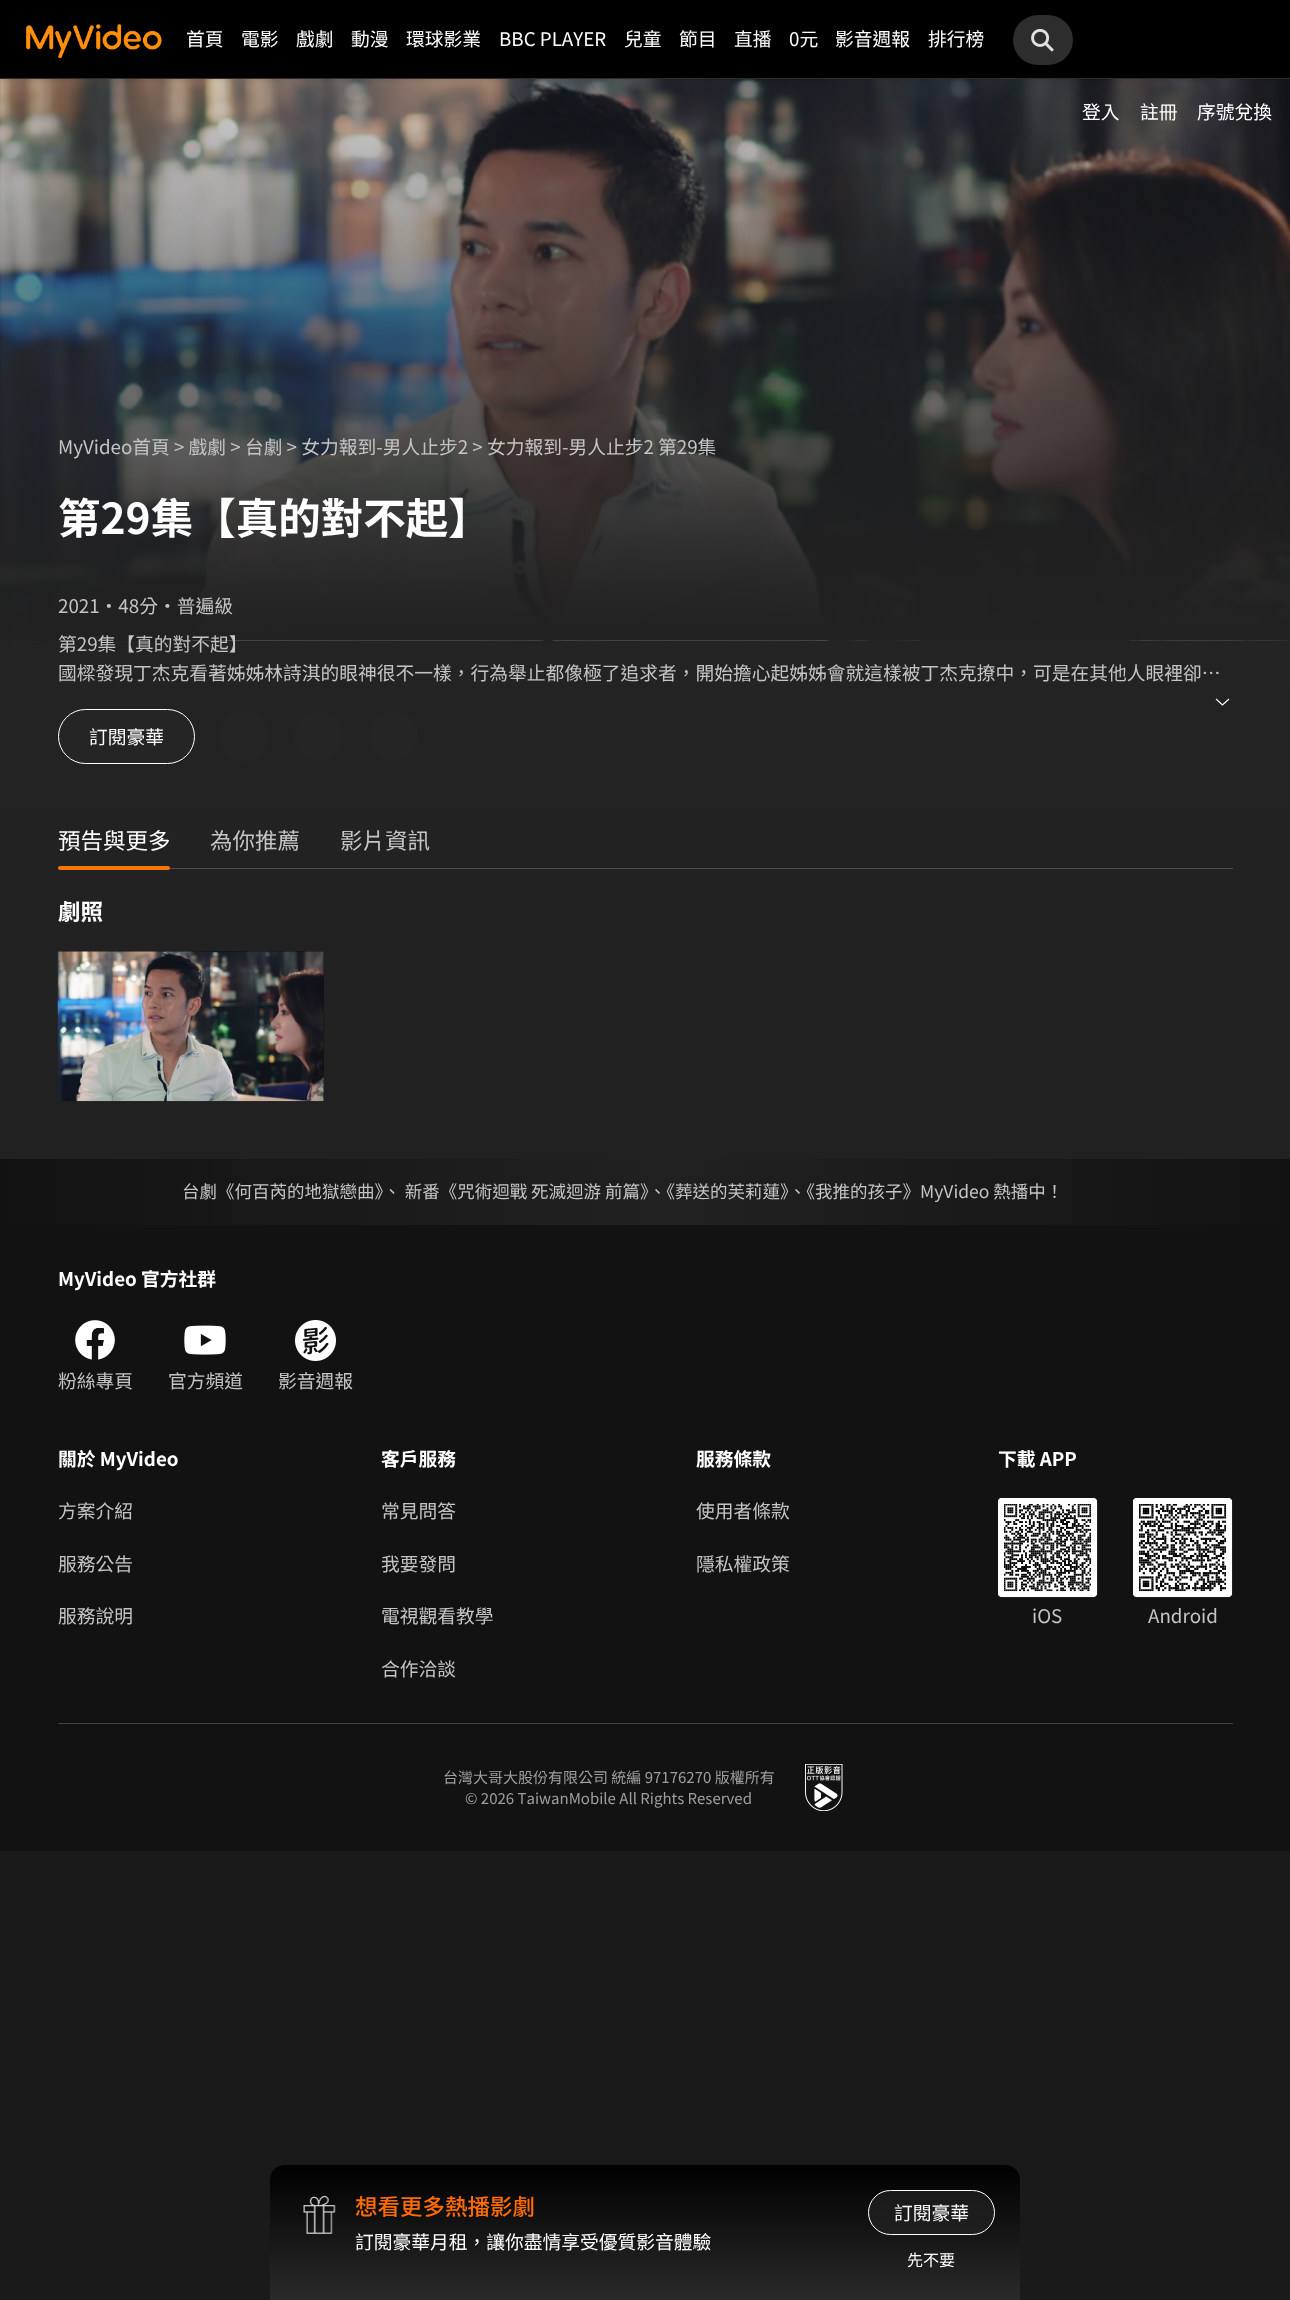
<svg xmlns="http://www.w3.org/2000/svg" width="1290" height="2300">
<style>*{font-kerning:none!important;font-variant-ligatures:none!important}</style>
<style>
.a{font:18.75px Noto Sans TC;fill:#fff}
.b{font:18.75px Noto Sans TC;fill:#c4c4c4}
.c{font:bold 42.5px Noto Sans TC;fill:#fff}
.d{font:22.5px Noto Sans TC;fill:#fff}
.e{font:22.5px Noto Sans TC;fill:#c4c4c4}
.f{font:bold 22.5px Noto Sans TC;fill:#fff}
.g{font:17.5px Noto Sans TC;fill:#c4c4c4}
.h{font:bold 18.75px Noto Sans TC;fill:#fff}
.i{font:15px Noto Sans TC;fill:#9e9e9e}
.j{font:500 22.5px Noto Sans TC;fill:#ff6b00}
.k{font:16px Noto Sans TC;fill:#fff}
</style>
<defs>
<linearGradient id="g1" gradientUnits="userSpaceOnUse" x1="643" y1="77" x2="643" y2="640"><stop offset="0" stop-color="#212121" stop-opacity="0.2"/><stop offset="1" stop-color="#212121"/></linearGradient>
<linearGradient id="g2" gradientUnits="userSpaceOnUse" x1="645" y1="77" x2="645" y2="1159"><stop offset="0.36" stop-color="#212121" stop-opacity="0"/><stop offset="0.47" stop-color="#212121" stop-opacity="0.45"/><stop offset="0.59" stop-color="#212121" stop-opacity="0.7"/><stop offset="0.88" stop-color="#212121"/></linearGradient>
<linearGradient id="g3" gradientUnits="userSpaceOnUse" x1="0" y1="1192" x2="1290" y2="1192"><stop offset="0" stop-color="#121212"/><stop offset="0.52" stop-color="#212121"/><stop offset="1" stop-color="#121212"/></linearGradient>
<linearGradient id="g4" gradientUnits="userSpaceOnUse" x1="645" y1="2165" x2="645" y2="2300"><stop offset="0" stop-color="#000"/><stop offset="1" stop-color="#2a2a2a"/></linearGradient>
</defs>
<rect width="100%" height="100%" fill="#1a1a1a"/>
<path fill="#000" d="M0 0h1290v78H0z"/>
<path fill="#2d2d2d" d="M0 78h1290v1H0z"/>
<image href="1.png" x="26" y="24" width="136" height="34"/>
<rect fill="#2d2d2d" x="1013" y="15" width="60" height="50" rx="25"/>
<image href="2.png" x="1031" y="28" width="23" height="24"/>
<path fill="#272727" d="M0 640h1290v383H0z"/>
<image href="3.png" x="0" y="79" width="1290" height="562"/>
<path fill="url(#g1)" d="M0 79h1290v561H0z"/>
<path fill="url(#g2)" d="M0 478h1290v681H0z"/>
<path fill="none" stroke="#fff" stroke-width="1.2" d="M1229 699l-6.5 6l-6.5-6"/>
<rect fill="#252525" stroke="#fff" x="58.5" y="709.5" width="136" height="54" rx="27"/>
<circle fill="#252525" cx="244" cy="736" r="25"/>
<circle fill="#252525" cx="319" cy="736" r="25"/>
<circle fill="#252525" cx="393" cy="736" r="25"/>
<path fill="#4e4e4e" d="M58 868h1175v1H58z"/>
<rect fill="#f57600" x="58" y="866" width="112" height="4" rx="2"/>
<path fill="#121212" d="M58 951h266v150H58z"/>
<image href="4.png" x="57" y="951" width="267" height="151"/>
<path fill="#121212" d="M0 1225h1290v626H0z"/>
<path fill="url(#g3)" d="M0 1159h1290v66H0z"/>
<image href="5.png" x="75" y="1320" width="40" height="40"/>
<image href="6.png" x="184" y="1325" width="42" height="30"/>
<image href="7.png" x="295" y="1320" width="41" height="41"/>
<image href="8.png" x="998" y="1498" width="100" height="100"/>
<image href="9.png" x="1133" y="1498" width="100" height="100"/>
<path fill="#424242" d="M58 1723h1175v1H58z"/>
<image href="10.png" x="805" y="1764" width="38" height="47"/>
<path fill="url(#g4)" d="M285 2165h720c8.5 0 15 6.5 15 15v120h-750v-120c0-8.5 6.5-15 15-15z"/>
<image href="11.png" x="303" y="2195" width="33" height="39"/>
<rect fill="#26262699" stroke="#fff" x="868.5" y="2190.5" width="126" height="44" rx="22"/>
<text class="a" x="186" y="46">首頁</text>
<text class="a" x="241" y="46">電影</text>
<text class="a" x="296" y="46">戲劇</text>
<text class="a" x="351" y="46">動漫</text>
<text class="a" x="406" y="46">環球影業</text>
<text class="a" x="499" y="46">BBC PLAYER</text>
<text class="a" x="624" y="46">兒童</text>
<text class="a" x="679" y="46">節目</text>
<text class="a" x="734" y="46">直播</text>
<text class="a" x="789" y="46">0元</text>
<text class="a" x="835" y="46">影音週報</text>
<text class="a" x="928" y="46">排行榜</text>
<text class="a" x="1082" y="119">登入</text>
<text class="a" x="1140" y="119">註冊</text>
<text class="a" x="1197" y="119">序號兌換</text>
<text class="b" x="58" y="454">MyVideo首頁 &gt; 戲劇 &gt; 台劇 &gt; 女力報到-男人止步2 &gt; 女力報到-男人止步2 第29集</text>
<text class="c" x="58" y="534">第29集【真的對不起】</text>
<text class="b" x="58" y="613">2021・48分・普遍級</text>
<text class="b" x="58" y="651">第29集【真的對不起】</text>
<text class="b" x="58" y="680">國樑發現丁杰克看著姊姊林詩淇的眼神很不一樣，行為舉止都像極了追求者，開始擔心起姊姊會就這樣被丁杰克撩中，可是在其他人眼裡卻…</text>
<text class="a" x="89" y="744">訂閱豪華</text>
<text class="d" x="58" y="849">預告與更多</text>
<text class="e" x="210" y="849">為你推薦</text>
<text class="e" x="340" y="849">影片資訊</text>
<text class="f" x="58" y="920">劇照</text>
<text class="g" x="182" y="1198">台劇《何百芮的地獄戀曲》、 新番《咒術迴戰 死滅迴游 前篇》、《葬送的芙莉蓮》、《我推的孩子》MyVideo 熱播中！</text>
<text class="h" x="58" y="1286">MyVideo 官方社群</text>
<text class="b" x="58" y="1388">粉絲專頁</text>
<text class="b" x="168" y="1388">官方頻道</text>
<text class="b" x="278" y="1388">影音週報</text>
<text class="h" x="58" y="1466">關於 MyVideo</text>
<text class="b" x="58" y="1518">方案介紹</text>
<text class="b" x="58" y="1571">服務公告</text>
<text class="b" x="58" y="1623">服務說明</text>
<text class="h" x="381" y="1466">客戶服務</text>
<text class="b" x="381" y="1518">常見問答</text>
<text class="b" x="381" y="1571">我要發問</text>
<text class="b" x="381" y="1623">電視觀看教學</text>
<text class="b" x="381" y="1676">合作洽談</text>
<text class="h" x="696" y="1466">服務條款</text>
<text class="b" x="696" y="1518">使用者條款</text>
<text class="b" x="696" y="1571">隱私權政策</text>
<text class="h" x="998" y="1466">下載 APP</text>
<text class="b" x="1032" y="1623">iOS</text>
<text class="b" x="1148" y="1623">Android</text>
<text class="i" x="443" y="1783">台灣大哥大股份有限公司 統編 97176270 版權所有</text>
<text class="i" x="465" y="1804">© 2026 TaiwanMobile All Rights Reserved</text>
<text class="j" x="355" y="2215">想看更多熱播影劇</text>
<text class="a" x="355" y="2249">訂閱豪華月租，讓你盡情享受優質影音體驗</text>
<text class="a" x="894" y="2220">訂閱豪華</text>
<text class="k" x="907" y="2266">先不要</text>
</svg>
